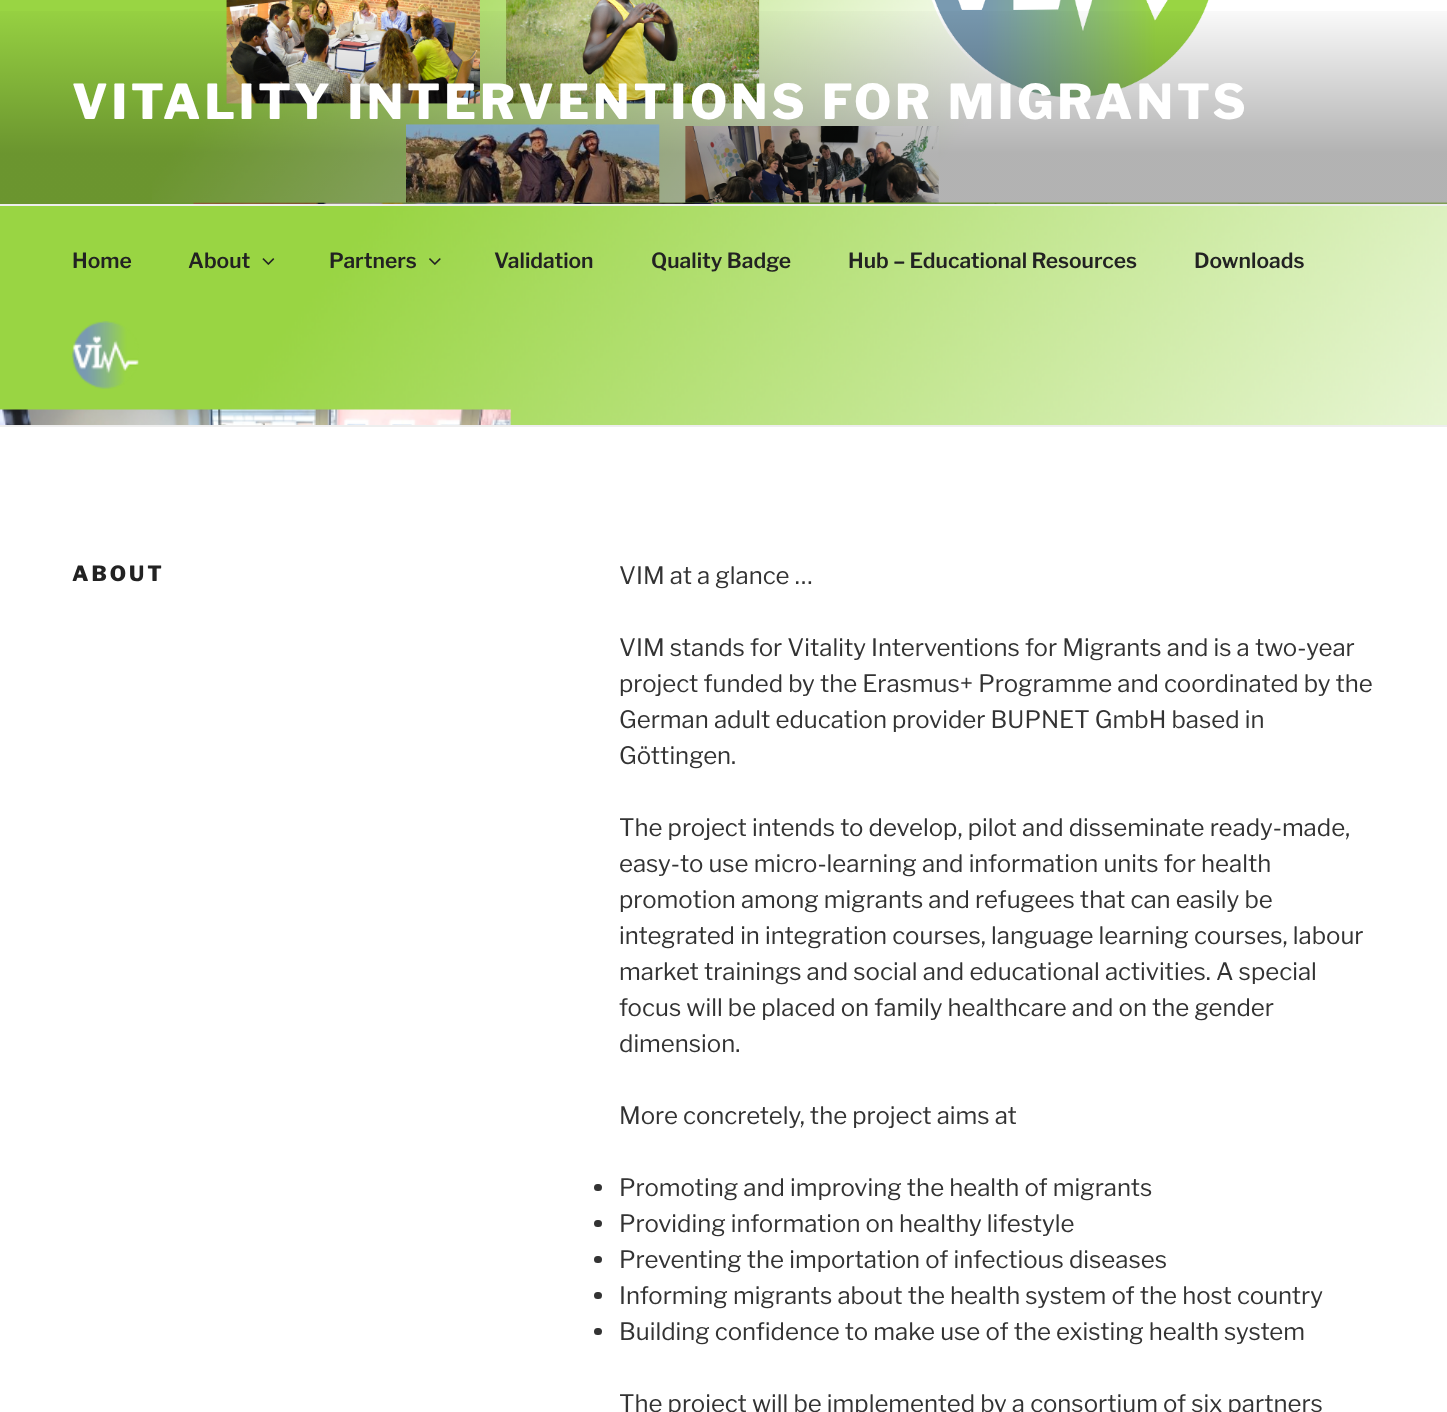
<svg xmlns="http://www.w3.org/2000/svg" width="1447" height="1412">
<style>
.a{font:100 48px Libre Franklin;letter-spacing:3.85px;fill:#fff}
.b{font:100 21px 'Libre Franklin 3';fill:#222}
.c{font:100 21px Libre Franklin;letter-spacing:3px;fill:#222}
.d{font:100 24px 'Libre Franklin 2';fill:#333}
</style>
<defs>
<linearGradient id="g1" gradientUnits="userSpaceOnUse" x1="724" y1="0" x2="724" y2="204"><stop offset="0" stop-color="#000" stop-opacity="0"/><stop offset="0.75" stop-color="#000" stop-opacity="0.3"/><stop offset="1" stop-color="#000" stop-opacity="0.3"/></linearGradient>
</defs>
<rect width="100%" height="100%" fill="#fff"/>
<image href="1.png" x="0" y="0" width="1447" height="204"/>
<image href="2.png" x="152" y="0" width="1295" height="203"/>
<path fill="url(#g1)" d="M0 11h1447v193H0z"/>
<image href="3.png" x="0" y="206" width="1447" height="219"/>
<path fill="#eee" d="M0 204h1447v2H0z"/>
<path fill="#eee" d="M0 425h1447v2H0z"/>
<image href="4.png" x="262" y="258" width="13" height="7"/>
<image href="5.png" x="429" y="258" width="12" height="7"/>
<image href="6.png" x="72" y="321" width="67" height="68"/>
<rect fill="#333" x="594" y="1184" width="8" height="7" rx="3.5"/>
<rect fill="#333" x="594" y="1220" width="8" height="7" rx="3.5"/>
<rect fill="#333" x="594" y="1256" width="8" height="7" rx="3.5"/>
<rect fill="#333" x="594" y="1292" width="8" height="7" rx="3.5"/>
<rect fill="#333" x="594" y="1328" width="8" height="7" rx="3.5"/>
<text class="a" x="72" y="119">VITALITY INTERVENTIONS FOR MIGRANTS</text>
<text class="b" x="72" y="268">Home</text>
<text class="b" x="188" y="268">About</text>
<text class="b" x="329" y="268">Partners</text>
<text class="b" x="494" y="268">Validation</text>
<text class="b" x="651" y="268">Quality Badge</text>
<text class="b" x="848" y="268">Hub – Educational Resources</text>
<text class="b" x="1194" y="268">Downloads</text>
<text class="c" x="72" y="581">ABOUT</text>
<text class="d" x="619" y="584">VIM at a glance …</text>
<text class="d" x="619" y="656">VIM stands for Vitality Interventions for Migrants and is a two-year</text>
<text class="d" x="619" y="692">project funded by the Erasmus+ Programme and coordinated by the</text>
<text class="d" x="619" y="728">German adult education provider BUPNET GmbH based in</text>
<text class="d" x="619" y="764">Göttingen.</text>
<text class="d" x="619" y="836">The project intends to develop, pilot and disseminate ready-made,</text>
<text class="d" x="619" y="872">easy-to use micro-learning and information units for health</text>
<text class="d" x="619" y="908">promotion among migrants and refugees that can easily be</text>
<text class="d" x="619" y="944">integrated in integration courses, language learning courses, labour</text>
<text class="d" x="619" y="980">market trainings and social and educational activities. A special</text>
<text class="d" x="619" y="1016">focus will be placed on family healthcare and on the gender</text>
<text class="d" x="619" y="1052">dimension.</text>
<text class="d" x="619" y="1124">More concretely, the project aims at</text>
<text class="d" x="619" y="1196">Promoting and improving the health of migrants</text>
<text class="d" x="619" y="1232">Providing information on healthy lifestyle</text>
<text class="d" x="619" y="1268">Preventing the importation of infectious diseases</text>
<text class="d" x="619" y="1304">Informing migrants about the health system of the host country</text>
<text class="d" x="619" y="1340">Building confidence to make use of the existing health system</text>
<text class="d" x="619" y="1412">The project will be implemented by a consortium of six partners</text>
</svg>
